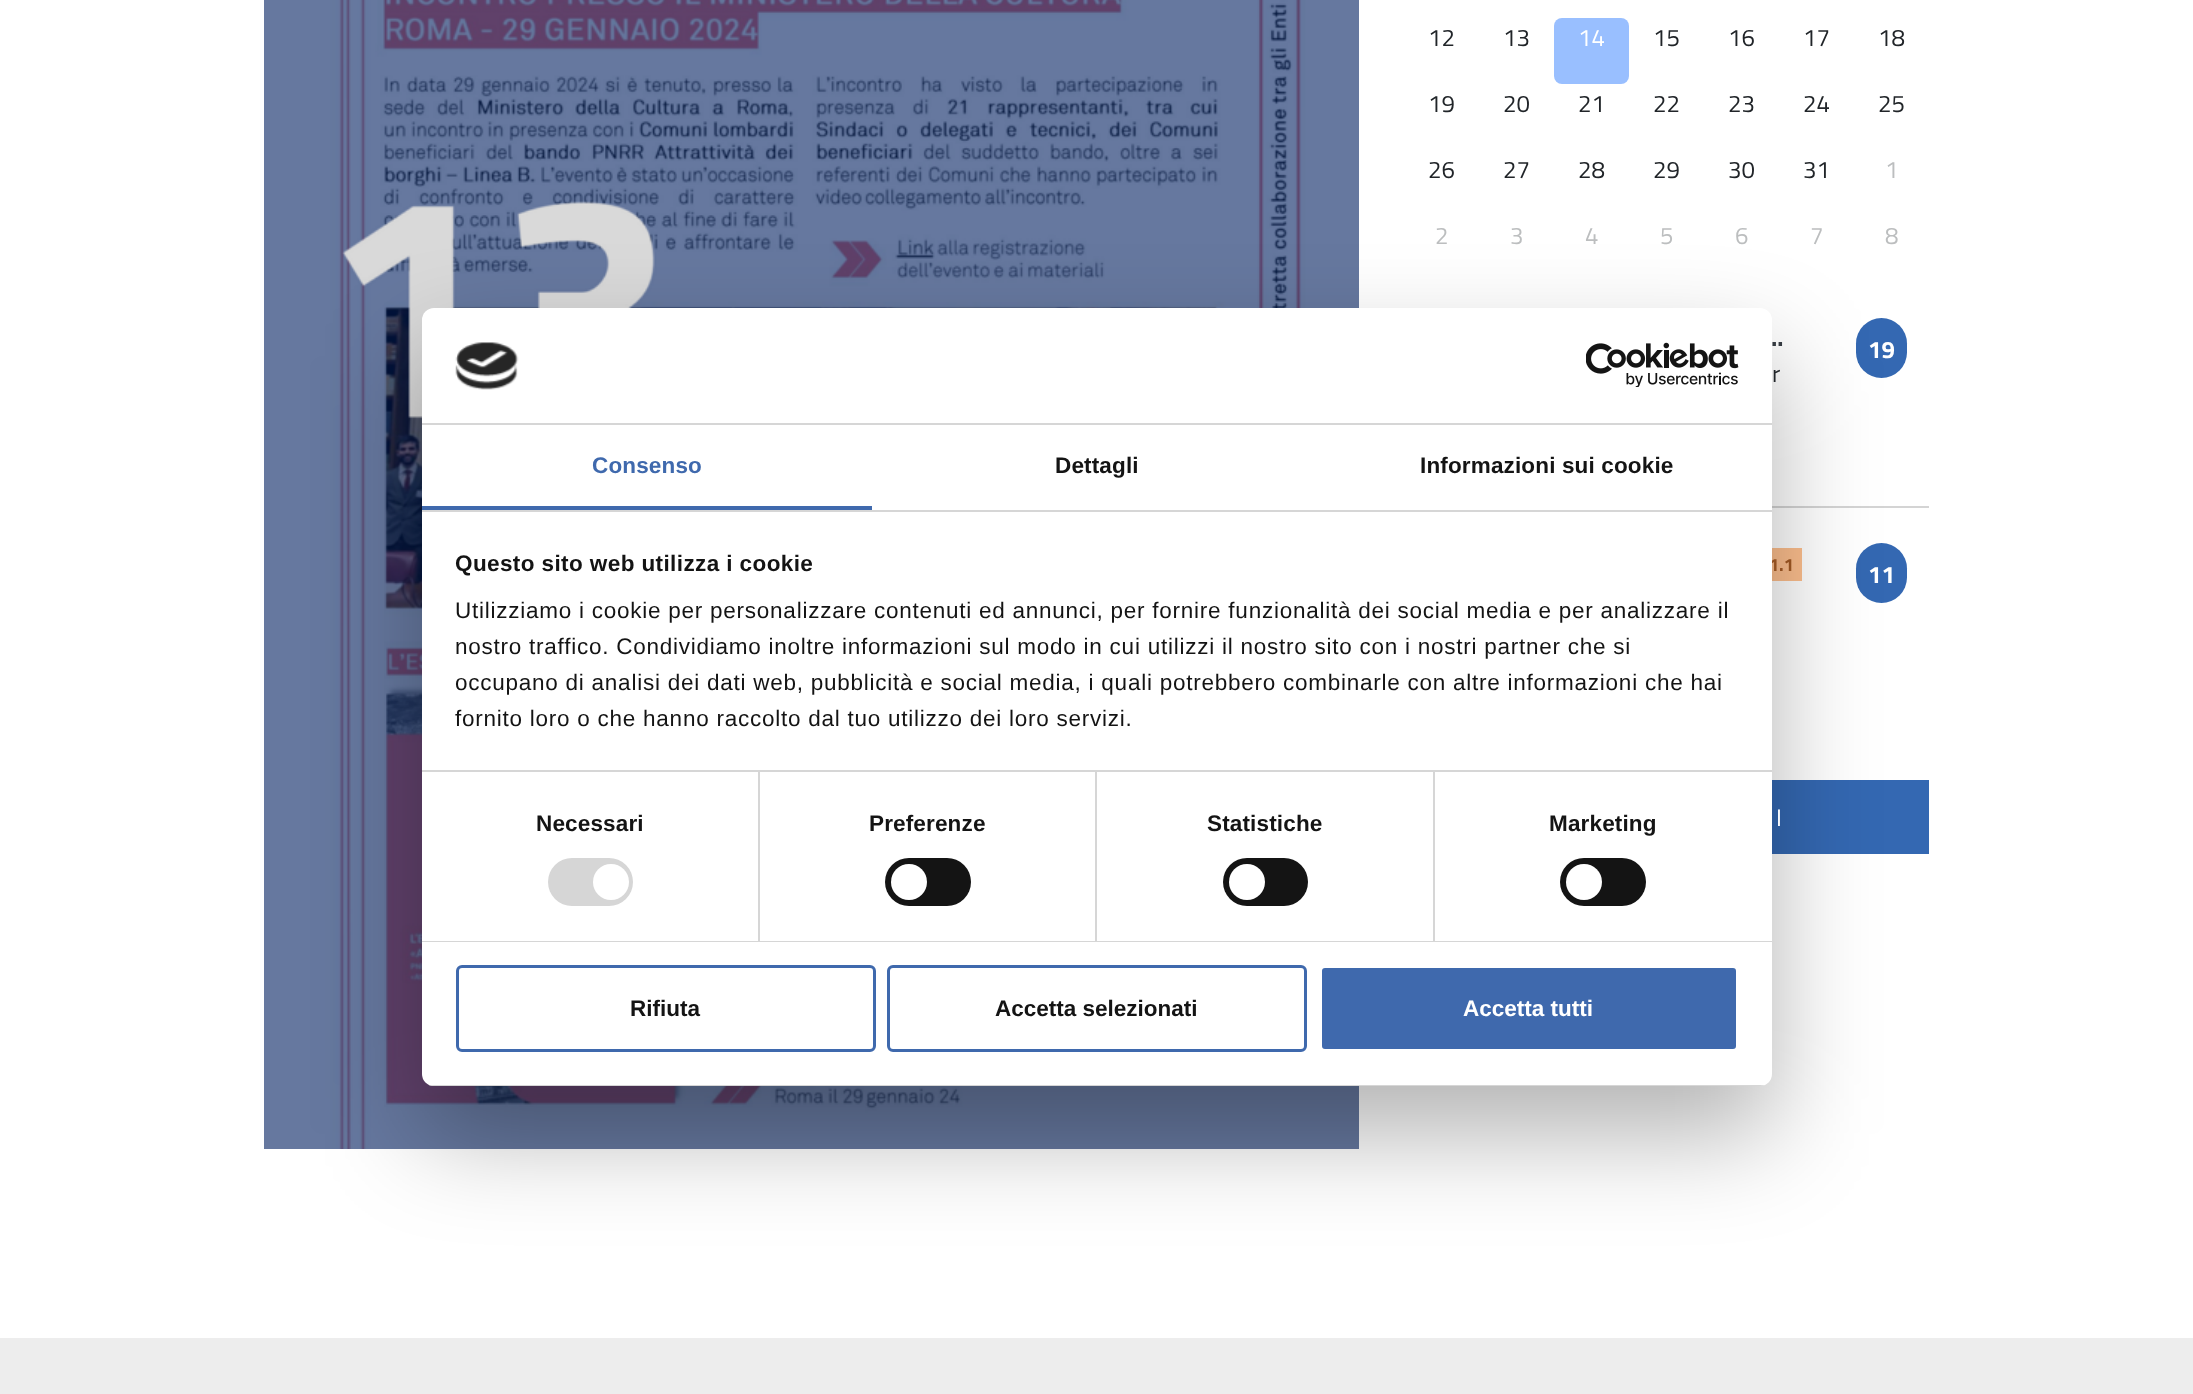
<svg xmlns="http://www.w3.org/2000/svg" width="2193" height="1394">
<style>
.a{font:24px Titillium Web;fill:#212529}
.b{font:24px Titillium Web;fill:#fff}
.c{font:24px Titillium Web;fill:#bcbebf}
.d{font:bold 24px Titillium Web;fill:#343a40}
.e{font:bold 24px Titillium Web;fill:#fff}
.f{font:bold 18px Titillium Web;fill:#915020}
.g{font:bold 22.5px Liberation Sans;letter-spacing:0.15px;fill:#3f69ad}
.h{font:bold 22.5px Liberation Sans;letter-spacing:0.15px;fill:#141414}
.i{font:bold 22.5px Liberation Sans;letter-spacing:0.4px;fill:#141414}
.j{font:22.5px Liberation Sans;letter-spacing:0.75px;fill:#141414}
.k{font:bold 22.5px Liberation Sans;fill:#141414}
.l{font:bold 22.5px Liberation Sans;fill:#fff}
</style>
<defs>
<clipPath id="clip1"><rect x="422" y="308" width="1350" height="778" rx="12"/></clipPath>
</defs>
<rect width="100%" height="100%" fill="#fff"/>
<image href="1.png" x="264" y="0" width="1095" height="1149"/>
<rect fill="#99bfff" x="1554" y="18" width="75" height="66" rx="8"/>
<path fill="#d4d4d4" d="M1772 506h157v2H1772z"/>
<rect fill="#3468b2" x="1856" y="318" width="51" height="60" rx="25.5"/>
<path fill="#fdbf8e" d="M1772 548h30v33H1772z"/>
<rect fill="#3468b2" x="1856" y="543" width="51" height="60" rx="25.5"/>
<path fill="#3468b2" d="M1772 780h157v74H1772z"/>
<path fill="#ededed" d="M0 1338h2193v56H0z"/>
<rect fill="#0000004d" filter="blur(51px)" x="422" y="356" width="1350" height="778" rx="12"/>
<text class="a" x="1428" y="46">12</text>
<text class="a" x="1503" y="46">13</text>
<text class="b" x="1578" y="46">14</text>
<text class="a" x="1653" y="46">15</text>
<text class="a" x="1728" y="46">16</text>
<text class="a" x="1803" y="46">17</text>
<text class="a" x="1878" y="46">18</text>
<text class="a" x="1428" y="112">19</text>
<text class="a" x="1503" y="112">20</text>
<text class="a" x="1578" y="112">21</text>
<text class="a" x="1653" y="112">22</text>
<text class="a" x="1728" y="112">23</text>
<text class="a" x="1803" y="112">24</text>
<text class="a" x="1878" y="112">25</text>
<text class="a" x="1428" y="178">26</text>
<text class="a" x="1503" y="178">27</text>
<text class="a" x="1578" y="178">28</text>
<text class="a" x="1653" y="178">29</text>
<text class="a" x="1728" y="178">30</text>
<text class="a" x="1803" y="178">31</text>
<text class="c" x="1885" y="178">1</text>
<text class="c" x="1435" y="244">2</text>
<text class="c" x="1510" y="244">3</text>
<text class="c" x="1585" y="244">4</text>
<text class="c" x="1660" y="244">5</text>
<text class="c" x="1735" y="244">6</text>
<text class="c" x="1810" y="244">7</text>
<text class="c" x="1885" y="244">8</text>
<text class="d" x="1765" y="346">…</text>
<text class="a" x="1772" y="382">r</text>
<text class="e" x="1868" y="358">19</text>
<text class="f" x="1769" y="571">1.1</text>
<text class="e" x="1868" y="583">11</text>
<text class="b" x="1776" y="826">I</text>
<rect fill="#fff" x="422" y="308" width="1350" height="778" rx="12"/>
<path fill="#d6d6d6" d="M422 423h1350v2H422z"/>
<image href="2.png" x="455" y="342" width="64" height="48"/>
<image href="3.png" x="1586" y="342" width="153" height="45"/>
<path fill="#d6d6d6" d="M422 510h1350v2H422z"/>
<path fill="#3f69ad" d="M422 506h450v4H422z"/>
<text class="g" x="592" y="473">Consenso</text>
<text class="h" x="1055" y="473">Dettagli</text>
<text class="h" x="1420" y="473">Informazioni sui cookie</text>
<text class="i" x="455" y="571">Questo sito web utilizza i cookie</text>
<text class="j" x="455" y="618">Utilizziamo i cookie per personalizzare contenuti ed annunci, per fornire funzionalità dei social media e per analizzare il</text>
<text class="j" x="455" y="654">nostro traffico. Condividiamo inoltre informazioni sul modo in cui utilizzi il nostro sito con i nostri partner che si</text>
<text class="j" x="455" y="690">occupano di analisi dei dati web, pubblicità e social media, i quali potrebbero combinarle con altre informazioni che hai</text>
<text class="j" x="455" y="726">fornito loro o che hanno raccolto dal tuo utilizzo dei loro servizi.</text>
<path fill="#d6d6d6" d="M422 941h1350v1H422z"/>
<path fill="#d6d6d6" d="M758 771h2v170H758z"/>
<text class="h" x="536" y="831">Necessari</text>
<rect fill="#d6d6d6" x="548" y="858" width="85" height="48" rx="24"/>
<circle fill="#fff" cx="611" cy="882" r="18"/>
<path fill="#d6d6d6" d="M1095 771h2v170H1095z"/>
<text class="h" x="869" y="831">Preferenze</text>
<rect fill="#141414" x="885" y="858" width="86" height="48" rx="24"/>
<circle fill="#fff" cx="909" cy="882" r="18"/>
<path fill="#d6d6d6" d="M1433 771h2v170H1433z"/>
<path fill="#d6d6d6" d="M422 770h1350v2H422z"/>
<text class="h" x="1207" y="831">Statistiche</text>
<rect fill="#141414" x="1223" y="858" width="85" height="48" rx="24"/>
<circle fill="#fff" cx="1247" cy="882" r="18"/>
<text class="h" x="1549" y="831">Marketing</text>
<rect fill="#141414" x="1560" y="858" width="86" height="48" rx="24"/>
<circle fill="#fff" cx="1584" cy="882" r="18"/>
<g clip-path="url(#clip1)">
<path fill="#d6d6d6" d="M422 1085h1350v1H422z"/>
</g>
<rect fill="none" stroke="#3f69ad" stroke-width="3" x="457.5" y="966.5" width="417" height="84" rx="4.5"/>
<text class="k" x="630" y="1016">Rifiuta</text>
<rect fill="none" stroke="#3f69ad" stroke-width="3" x="888.5" y="966.5" width="417" height="84" rx="4.5"/>
<text class="k" x="995" y="1016">Accetta selezionati</text>
<rect fill="#3f69ad" stroke="#fff" stroke-width="3" x="1320.5" y="966.5" width="417" height="84" rx="4.5"/>
<text class="l" x="1463" y="1016">Accetta tutti</text>
</svg>
